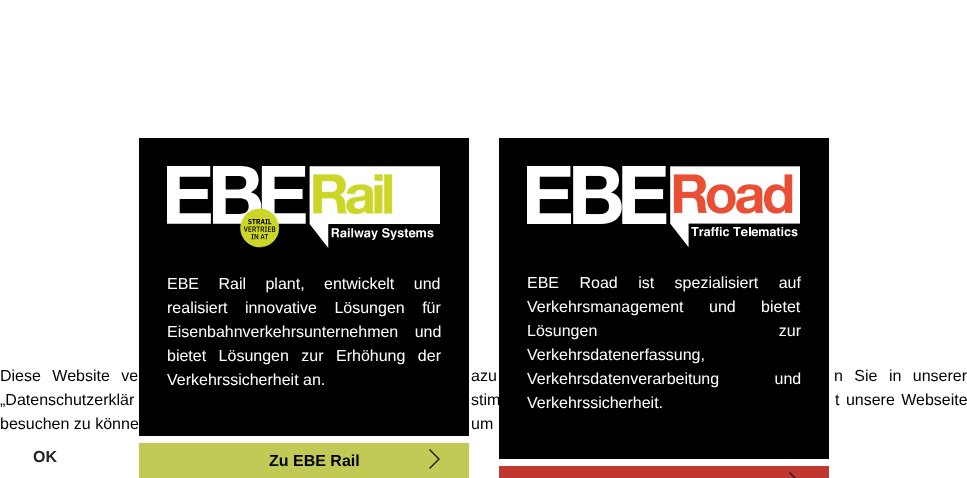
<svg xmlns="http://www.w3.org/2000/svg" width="967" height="478">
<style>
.a{font:16px Liberation Sans;fill:#fff}
.b{font:bold 16px Liberation Sans;fill:#000}
.c{font:16px Liberation Sans;fill:#000}
.d{font:bold 16px Liberation Sans;fill:#212529}
</style>
<rect width="100%" height="100%" fill="#fff"/>
<path fill="#000" d="M139 138h330v298H139z"/>
<image href="1.png" x="167" y="166" width="273" height="82"/>
<path fill="#c2ca56" d="M139 443h330v35H139z"/>
<path fill="#1d1d1b" fill-rule="evenodd" d="M370 459h68l-9-9l1-1l10 10l-10 10l-1-1l9-9h-68"/>
<path fill="#000" d="M499 138h330v321H499z"/>
<image href="2.png" x="527" y="166" width="273" height="81"/>
<path fill="#bf372e" d="M499 466h330v12H499z"/>
<path fill="#1d1d1b" fill-rule="evenodd" d="M730 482h68l-9-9l1-1l10 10l-10 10l-1-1l9-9h-68"/>
<text class="a" x="167" y="289" word-spacing="15">EBE Rail plant, entwickelt und</text>
<text class="a" x="167" y="313" word-spacing="13">realisiert innovative Lösungen für</text>
<text class="a" x="167" y="337" word-spacing="12">Eisenbahnverkehrsunternehmen und</text>
<text class="a" x="167" y="361" word-spacing="8">bietet Lösungen zur Erhöhung der</text>
<text class="a" x="167" y="385">Verkehrssicherheit an.</text>
<text class="b" x="269" y="466">Zu EBE Rail</text>
<text class="a" x="527" y="288" word-spacing="16">EBE Road ist spezialisiert auf</text>
<text class="a" x="527" y="312" word-spacing="21">Verkehrsmanagement und bietet</text>
<text class="a" x="527" y="336" word-spacing="177">Lösungen zur</text>
<text class="a" x="527" y="360">Verkehrsdatenerfassung,</text>
<text class="a" x="527" y="384" word-spacing="51">Verkehrsdatenverarbeitung und</text>
<text class="a" x="527" y="408">Verkehrssicherheit.</text>
<text class="c" x="0" y="381" word-spacing="7">Diese Website ve</text>
<text class="c" x="471" y="381" word-spacing="7">azu</text>
<text class="c" x="834" y="381" word-spacing="7">n Sie in unserer</text>
<text class="c" x="0" y="405" word-spacing="2">„Datenschutzerklär</text>
<text class="c" x="471" y="405" word-spacing="2">stim</text>
<text class="c" x="835" y="405" word-spacing="2">t unsere Webseite</text>
<text class="c" x="0" y="429">besuchen zu könne</text>
<text class="c" x="471" y="429">um</text>
<text class="d" x="33" y="462">OK</text>
</svg>
